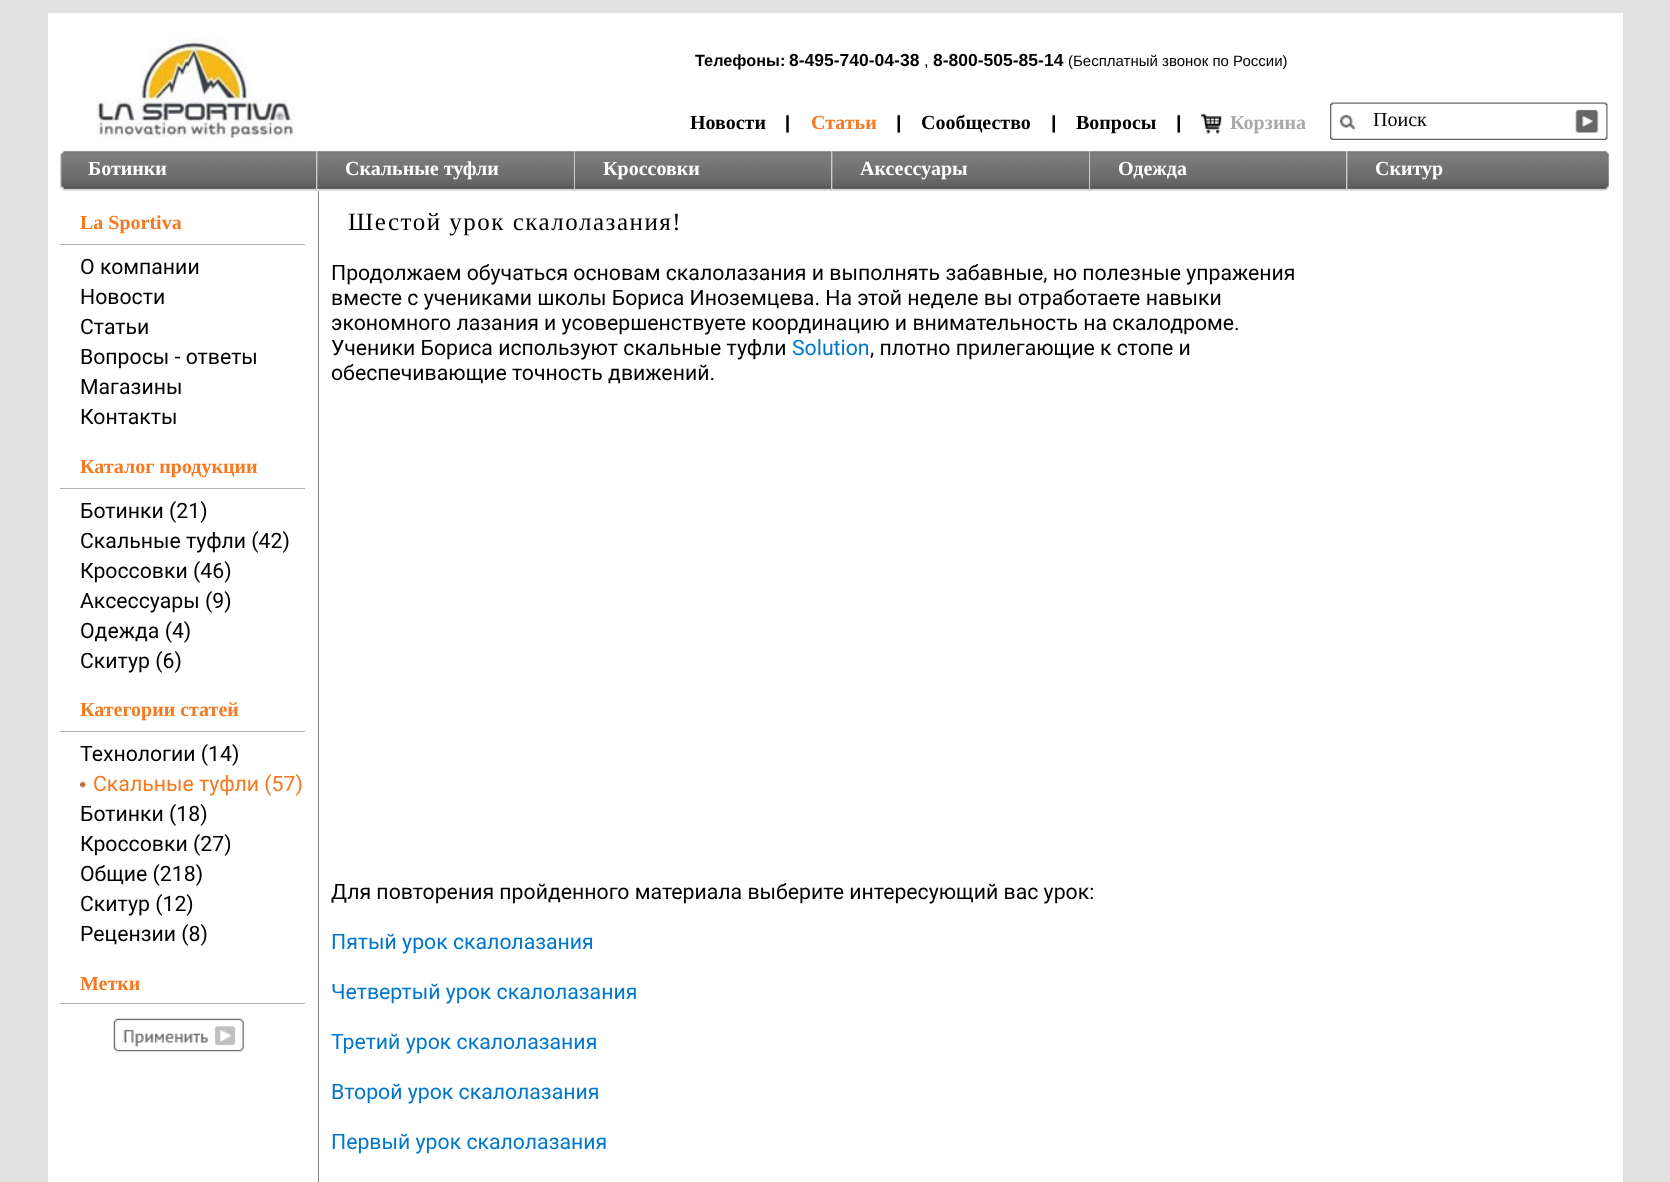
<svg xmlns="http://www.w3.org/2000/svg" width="1670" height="1182">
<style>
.a{font:bold 16.25px Liberation Sans;fill:#000}
.b{font:bold 17.5px Liberation Sans;fill:#000}
.c{font:16.25px Liberation Sans;fill:#000}
.d{font:15px Liberation Sans;fill:#000}
.e{font:bold 20px Liberation Serif;fill:#000}
.f{font:bold 20px Liberation Serif;fill:#f47920}
.g{font:bold 20px Liberation Serif;fill:#a9a9a9}
.h{font:20px Liberation Serif;fill:#000}
.i{font:bold 20px Liberation Serif;fill:#fff}
.j{font:21.25px Roboto;fill:#000}
.k{font:21.25px Roboto;fill:#f47920}
.l{font:25px Liberation Serif;letter-spacing:1.5px;fill:#000}
.m{font:21.25px Roboto;fill:#07c}
</style>
<rect width="100%" height="100%" fill="#e1e1e1"/>
<path fill="#fff" d="M48 13h1575v1169H48z"/>
<image href="1.png" x="95" y="37" width="202" height="101"/>
<image href="2.png" x="786" y="114" width="3" height="20"/>
<image href="3.png" x="897" y="114" width="3" height="20"/>
<image href="3.png" x="1052" y="114" width="3" height="20"/>
<image href="3.png" x="1177" y="114" width="3" height="20"/>
<image href="4.png" x="1201" y="113" width="21" height="21"/>
<image href="5.png" x="1330" y="102" width="245" height="38"/>
<image href="6.png" x="1575" y="102" width="33" height="38"/>
<image href="7.png" x="60" y="151" width="258" height="40"/>
<path fill="#cbcbcb" d="M316 151h1v40H316z"/>
<image href="8.png" x="317" y="151" width="257" height="40"/>
<path fill="#cbcbcb" d="M574 151h1v40H574z"/>
<image href="9.png" x="575" y="151" width="258" height="40"/>
<path fill="#cbcbcb" d="M831 151h1v40H831z"/>
<image href="10.png" x="832" y="151" width="257" height="40"/>
<path fill="#cbcbcb" d="M1089 151h1v40H1089z"/>
<image href="9.png" x="1090" y="151" width="258" height="40"/>
<path fill="#cbcbcb" d="M1346 151h1v40H1346z"/>
<image href="11.png" x="1347" y="151" width="262" height="40"/>
<path fill="#b2b2b2" d="M60 244h245v1H60z"/>
<path fill="#b2b2b2" d="M60 488h245v1H60z"/>
<path fill="#b2b2b2" d="M60 731h245v1H60z"/>
<image href="12.png" x="80" y="781" width="7" height="7"/>
<path fill="#b2b2b2" d="M60 1003h245v1H60z"/>
<image href="13.png" x="113" y="1018" width="131" height="34"/>
<path fill="#8c8c8c" d="M318 191h1v991H318z"/>
<text class="a" x="695" y="66">Телефоны:</text>
<text class="b" x="789" y="66">8-495-740-04-38</text>
<text class="c" x="924" y="66">,</text>
<text class="b" x="933" y="66">8-800-505-85-14</text>
<text class="d" x="1068" y="66">(Бесплатный звонок по России)</text>
<text class="e" x="690" y="129">Новости</text>
<text class="f" x="811" y="129">Статьи</text>
<text class="e" x="921" y="129">Сообщество</text>
<text class="e" x="1076" y="129">Вопросы</text>
<text class="g" x="1230" y="129">Корзина</text>
<text class="h" x="1373" y="126">Поиск</text>
<text class="i" x="88" y="175">Ботинки</text>
<text class="i" x="345" y="175">Скальные туфли</text>
<text class="i" x="603" y="175">Кроссовки</text>
<text class="i" x="860" y="175">Аксессуары</text>
<text class="i" x="1118" y="175">Одежда</text>
<text class="i" x="1375" y="175">Скитур</text>
<text class="f" x="80" y="229">La Sportiva</text>
<text class="j" x="80" y="274">О компании</text>
<text class="j" x="80" y="304">Новости</text>
<text class="j" x="80" y="334">Статьи</text>
<text class="j" x="80" y="364">Вопросы - ответы</text>
<text class="j" x="80" y="394">Магазины</text>
<text class="j" x="80" y="424">Контакты</text>
<text class="f" x="80" y="473">Каталог продукции</text>
<text class="j" x="80" y="518">Ботинки (21)</text>
<text class="j" x="80" y="548">Скальные туфли (42)</text>
<text class="j" x="80" y="578">Кроссовки (46)</text>
<text class="j" x="80" y="608">Аксессуары (9)</text>
<text class="j" x="80" y="638">Одежда (4)</text>
<text class="j" x="80" y="668">Скитур (6)</text>
<text class="f" x="80" y="716">Категории статей</text>
<text class="j" x="80" y="761">Технологии (14)</text>
<text class="k" x="93" y="791">Скальные туфли (57)</text>
<text class="j" x="80" y="821">Ботинки (18)</text>
<text class="j" x="80" y="851">Кроссовки (27)</text>
<text class="j" x="80" y="881">Общие (218)</text>
<text class="j" x="80" y="911">Скитур (12)</text>
<text class="j" x="80" y="941">Рецензии (8)</text>
<text class="f" x="80" y="990">Метки</text>
<text class="l" x="348" y="230">Шестой урок скалолазания!</text>
<text class="j" x="331" y="280">Продолжаем обучаться основам скалолазания и выполнять забавные, но полезные упражения</text>
<text class="j" x="331" y="305">вместе с учениками школы Бориса Иноземцева. На этой неделе вы отработаете навыки</text>
<text class="j" x="331" y="330">экономного лазания и усовершенствуете координацию и внимательность на скалодроме.</text>
<text class="j" x="331" y="355">Ученики Бориса используют скальные туфли</text>
<text class="m" x="792" y="355">Solution</text>
<text class="j" x="870" y="355">, плотно прилегающие к стопе и</text>
<text class="j" x="331" y="380">обеспечивающие точность движений.</text>
<text class="j" x="331" y="899">Для повторения пройденного материала выберите интересующий вас урок:</text>
<text class="m" x="331" y="949">Пятый урок скалолазания</text>
<text class="m" x="331" y="999">Четвертый урок скалолазания</text>
<text class="m" x="331" y="1049">Третий урок скалолазания</text>
<text class="m" x="331" y="1099">Второй урок скалолазания</text>
<text class="m" x="331" y="1149">Первый урок скалолазания</text>
</svg>
